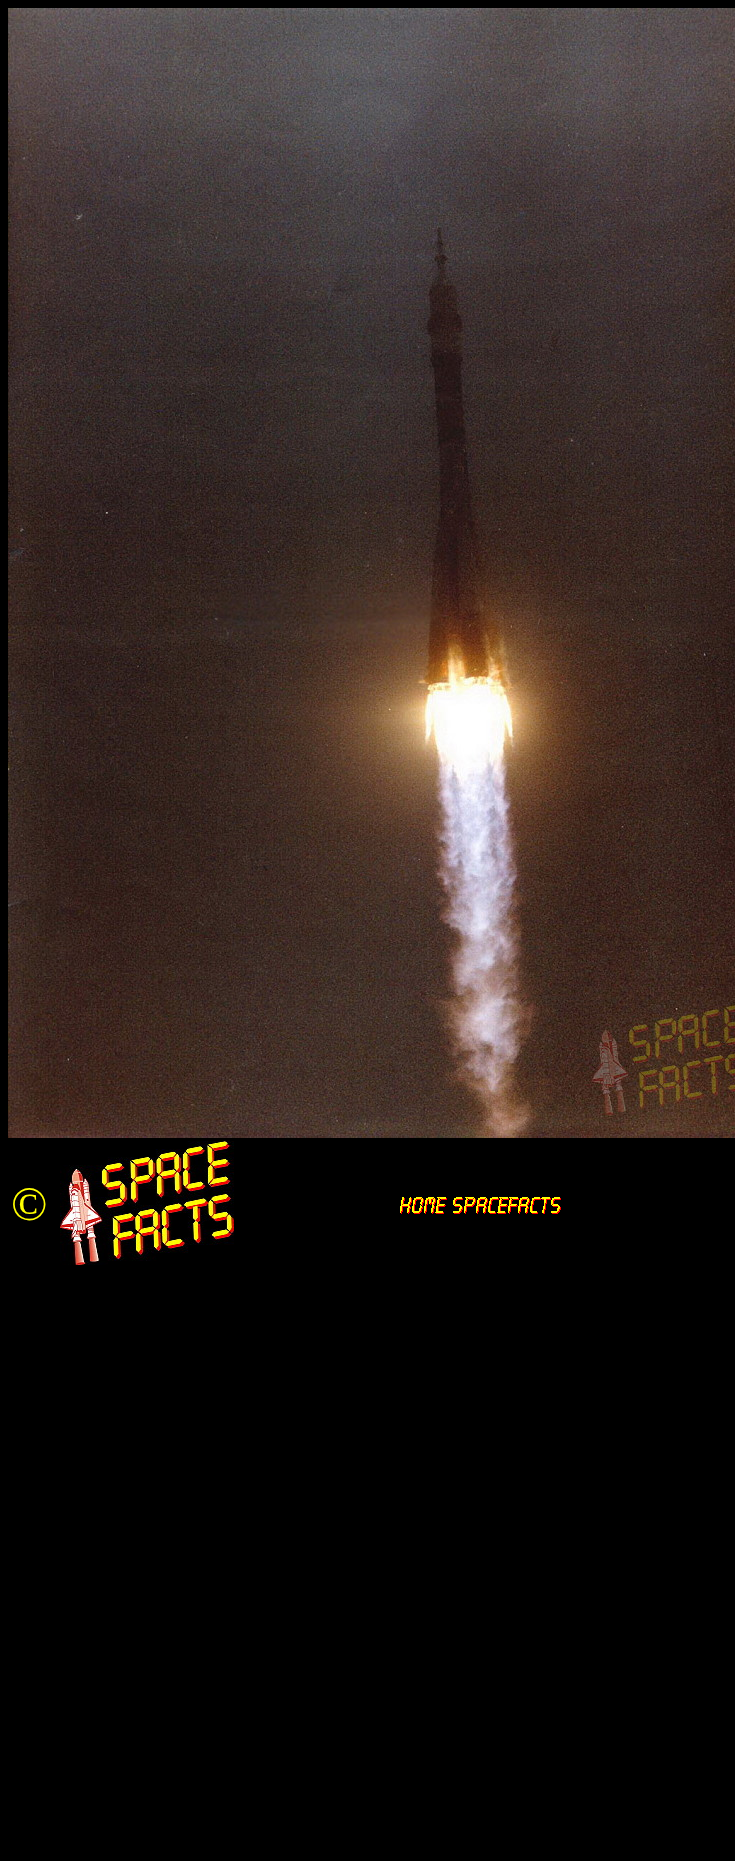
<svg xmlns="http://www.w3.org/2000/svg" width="735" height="1861">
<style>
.a{font:48px Liberation Serif;fill:#ff0}
</style>
<rect width="100%" height="100%" fill="#000"/>
<image href="1.png" x="8" y="8" width="727" height="1130"/>
<image href="2.png" x="60" y="1141" width="174" height="124"/>
<image href="3.png" x="400" y="1197" width="161" height="17"/>
<text class="a" x="11" y="1220">©</text>
</svg>
